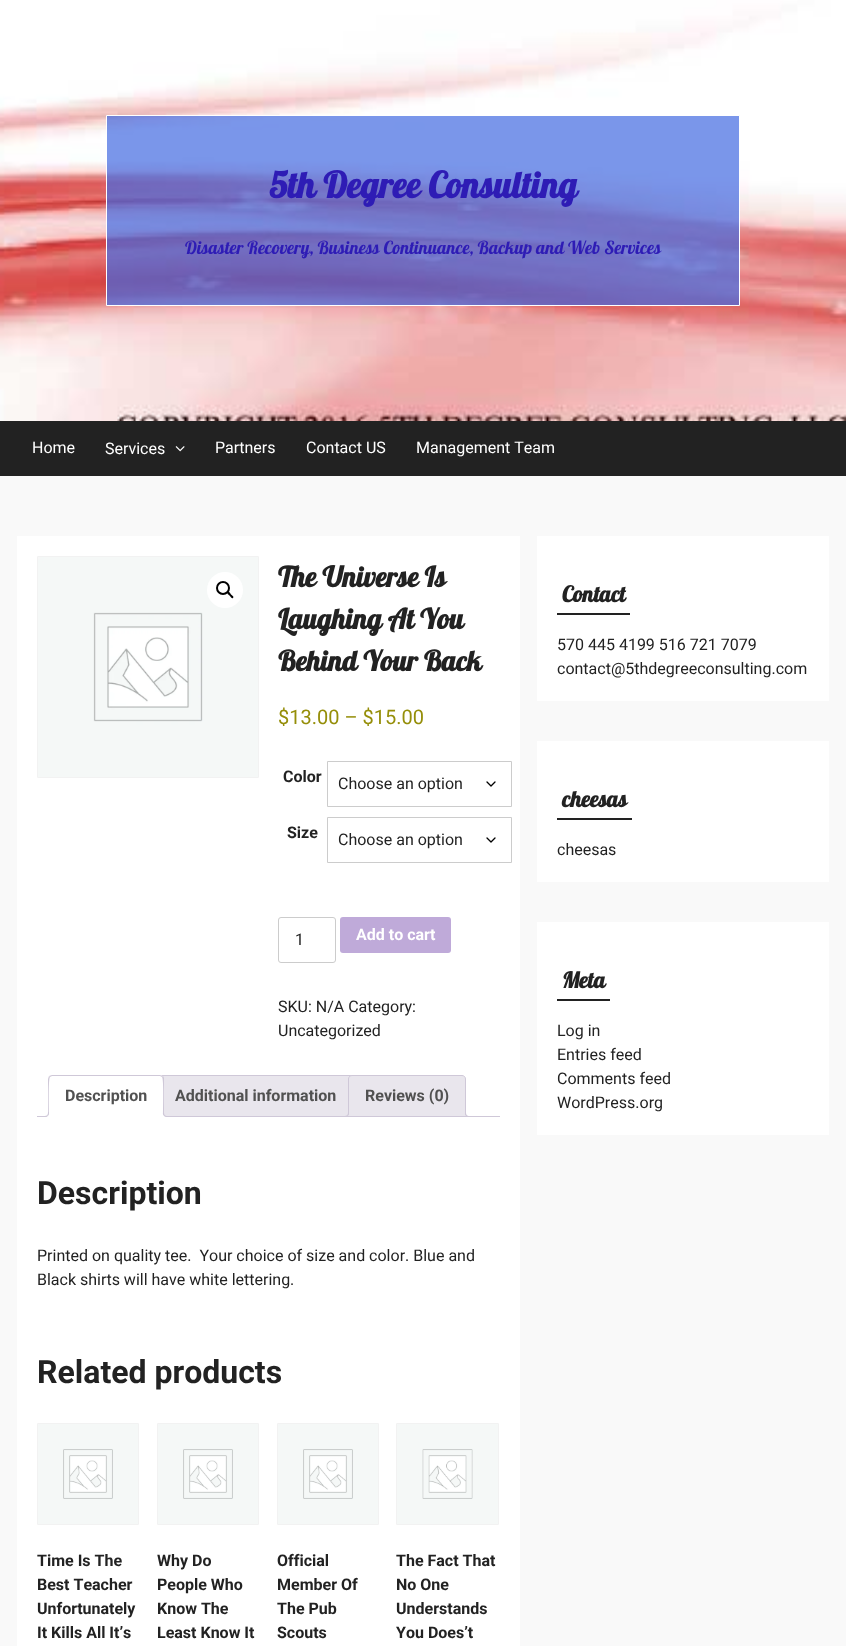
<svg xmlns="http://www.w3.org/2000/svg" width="846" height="1646">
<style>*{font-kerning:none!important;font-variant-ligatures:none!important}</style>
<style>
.a{font:bold 36px Lobster;fill:#2e1cb5}
.b{font:18px Lobster;fill:#2e1cb5}
.c{font:16px Roboto;fill:#fff}
.d{font:bold 28px Lobster;fill:#222}
.e{font:20px Roboto;fill:#958e09}
.f{font:bold 16px Roboto;fill:#222}
.g{font:16px Roboto;fill:#222}
.h{font:bold 16px Roboto;fill:#fff}
.i{font:bold 16px Roboto;fill:#515151}
.j{font:bold 32px Roboto;fill:#222}
.k{font:bold 22px Lobster;fill:#222}
</style>
<defs>
<clipPath id="clip1"><path d="M37 1075h463v42H37z"/></clipPath>
</defs>
<rect width="100%" height="100%" fill="#f9f9f9"/>
<image href="1.png" x="0" y="0" width="846" height="421"/>
<path fill="#4169e1b3" stroke="#fff" d="M106.5 115.5h633v190H106.5z"/>
<path fill="#222" d="M0 421h846v55H0z"/>
<image href="2.png" x="175" y="446" width="10" height="6"/>
<path fill="#fff" d="M17 536h503v1110H17z"/>
<path fill="none" stroke="#f2f2f2" d="M37.5 556.5h221v221H37.5z"/>
<image href="3.png" x="38" y="557" width="220" height="220"/>
<circle fill="#fff" cx="225" cy="590" r="18"/>
<circle fill="none" stroke="#000" stroke-width="2" cx="223" cy="588" r="6"/>
<path fill="#000" d="M227.5 592c1.5-1 3 1.5 3.5 2.5c.5 .5 3.5 2 2 3.5c-1 1-2.5-1.5-3.5-2.5c-.5-.5-3-2-2-3.5z"/>
<path fill="none" stroke="#000" stroke-width="1.3" stroke-linecap="round" stroke-linejoin="round" d="M487 782l4 4l4-4"/>
<path fill="none" stroke="#ccc" d="M327.5 761.5h184v45H327.5z"/>
<path fill="none" stroke="#000" stroke-width="1.3" stroke-linecap="round" stroke-linejoin="round" d="M487 838l4 4l4-4"/>
<path fill="none" stroke="#ccc" d="M327.5 817.5h184v45H327.5z"/>
<rect fill="none" stroke="#ccc" x="278.5" y="917.5" width="57" height="45" rx="2.5"/>
<rect fill="#bfaad9" x="340" y="917" width="111" height="36" rx="3"/>
<path fill="#e9e6ed" stroke="#cfc8d8" d="M162 1075.5h188c2 0 3.5 1.5 3.5 3.5v37.5h-195v-37.5c0-2 1.5-3.5 3.5-3.5z"/>
<path fill="#e9e6ed" stroke="#cfc8d8" d="M352 1075.5h110c2 0 3.5 1.5 3.5 3.5v37.5h-117v-37.5c0-2 1.5-3.5 3.5-3.5z"/>
<g clip-path="url(#clip1)">
<path fill="#e9e6ed" d="M346 1117v2c3.5 0 5-1.5 5-5h-2c-.5 1.5-1.5 2.5-3 3z"/>
</g>
<path fill="#cfc8d8" fill-rule="evenodd" d="M344 1112h5c0 3.5-1.5 5-5 5zm0 0h4c0 3-1 4-4 4z"/>
<g clip-path="url(#clip1)">
<path fill="#e9e6ed" d="M463 1114c0 3.5 1.5 5 5 5v-2c-1.5-.5-2.5-1.5-3-3z"/>
</g>
<path fill="#cfc8d8" fill-rule="evenodd" d="M465 1112h5v5c-2.5 0-5-1-5-4zm1 0h4v4c-2 0-4-.5-4-3z"/>
<path fill="#cfc8d8" d="M37 1116h463v1H37z"/>
<path fill="#fff" d="M52 1075h108c2 0 4 2 4 4v38h-116v-38c0-2 2-4 4-4z"/>
<path fill="#cfc8d8" d="M52 1075l-3 1l1 1l2-1h108l2 1l1-1l-3-1z"/>
<path fill="#cfc8d8" d="M164 1117v-38c0-1 0-2-1-3l-1 1c2 2 1 34 1 39z"/>
<path fill="#fff" d="M164 1117l-1-1h-114l-1 1z"/>
<path fill="#cfc8d8" d="M48 1117l1-1c0-5-1-37 1-39l-1-1l-1 3z"/>
<g clip-path="url(#clip1)">
<path fill="#fff" d="M46 1117v2c3.5 0 5-1.5 5-5h-2c-.5 1.5-1.5 2.5-3 3z"/>
</g>
<path fill="#cfc8d8" fill-rule="evenodd" d="M44 1112h5c0 3.5-1.5 5-5 5zm0 0h4c0 3-1 4-4 4z"/>
<g clip-path="url(#clip1)">
<path fill="#fff" d="M161 1114c0 3.5 1.5 5 5 5v-2c-1.5-.5-2.5-1.5-3-3z"/>
</g>
<path fill="#cfc8d8" fill-rule="evenodd" d="M163 1112h5v5c-2.5 0-5-1-5-4zm1 0h4v4c-2 0-4-.5-4-3z"/>
<path fill="none" stroke="#f2f2f2" d="M37.5 1423.5h101v101H37.5z"/>
<image href="4.png" x="38" y="1424" width="100" height="100"/>
<path fill="none" stroke="#f2f2f2" d="M157.5 1423.5h101v101H157.5z"/>
<image href="4.png" x="158" y="1424" width="100" height="100"/>
<path fill="none" stroke="#f2f2f2" d="M277.5 1423.5h101v101H277.5z"/>
<image href="4.png" x="278" y="1424" width="100" height="100"/>
<path fill="none" stroke="#f2f2f2" d="M396.5 1423.5h102v101H396.5z"/>
<image href="5.png" x="397" y="1424" width="101" height="100"/>
<path fill="#fff" d="M537 536h292v165H537z"/>
<path fill="#222" d="M557 613h73v2H557z"/>
<path fill="#fff" d="M537 741h292v141H537z"/>
<path fill="#222" d="M557 818h75v2H557z"/>
<path fill="#fff" d="M537 922h292v213H537z"/>
<path fill="#222" d="M557 999h53v2H557z"/>
<text class="a" x="269" y="198">5th Degree Consulting</text>
<text class="b" x="185" y="254">Disaster Recovery, Business Continuance, Backup and Web Services</text>
<text class="c" x="32" y="453">Home</text>
<text class="c" x="105" y="454">Services</text>
<text class="c" x="215" y="453">Partners</text>
<text class="c" x="306" y="453">Contact US</text>
<text class="c" x="416" y="453">Management Team</text>
<text class="d" x="278" y="587">The Universe Is</text>
<text class="d" x="278" y="629">Laughing At You</text>
<text class="d" x="278" y="671">Behind Your Back</text>
<text class="e" x="278" y="724">$13.00 – $15.00</text>
<text class="f" x="283" y="782">Color</text>
<text class="g" x="338" y="789">Choose an option</text>
<text class="f" x="287" y="838">Size</text>
<text class="g" x="338" y="845">Choose an option</text>
<text class="g" x="295" y="945">1</text>
<text class="h" x="356" y="940">Add to cart</text>
<text class="g" x="278" y="1012">SKU: N/A Category:</text>
<text class="g" x="278" y="1036">Uncategorized</text>
<text class="i" x="65" y="1101">Description</text>
<text class="i" x="175" y="1101">Additional information</text>
<text class="i" x="365" y="1101">Reviews (0)</text>
<text class="j" x="37" y="1204">Description</text>
<text class="g" xml:space="preserve" x="37" y="1261">Printed on quality tee.  Your choice of size and color. Blue and</text>
<text class="g" x="37" y="1285">Black shirts will have white lettering.</text>
<text class="j" x="37" y="1383">Related products</text>
<text class="f" x="37" y="1566">Time Is The</text>
<text class="f" x="37" y="1590">Best Teacher</text>
<text class="f" x="37" y="1614">Unfortunately</text>
<text class="f" x="37" y="1638">It Kills All It’s</text>
<text class="f" x="157" y="1566">Why Do</text>
<text class="f" x="157" y="1590">People Who</text>
<text class="f" x="157" y="1614">Know The</text>
<text class="f" x="157" y="1638">Least Know It</text>
<text class="f" x="277" y="1566">Official</text>
<text class="f" x="277" y="1590">Member Of</text>
<text class="f" x="277" y="1614">The Pub</text>
<text class="f" x="277" y="1638">Scouts</text>
<text class="f" x="396" y="1566">The Fact That</text>
<text class="f" x="396" y="1590">No One</text>
<text class="f" x="396" y="1614">Understands</text>
<text class="f" x="396" y="1638">You Does’t</text>
<text class="k" x="562" y="602">Contact</text>
<text class="g" x="557" y="650">570 445 4199 516 721 7079</text>
<text class="g" x="557" y="674">contact@5thdegreeconsulting.com</text>
<text class="k" x="562" y="807">cheesas</text>
<text class="g" x="557" y="855">cheesas</text>
<text class="k" x="562" y="988">Meta</text>
<text class="g" x="557" y="1036">Log in</text>
<text class="g" x="557" y="1060">Entries feed</text>
<text class="g" x="557" y="1084">Comments feed</text>
<text class="g" x="557" y="1108">WordPress.org</text>
</svg>
